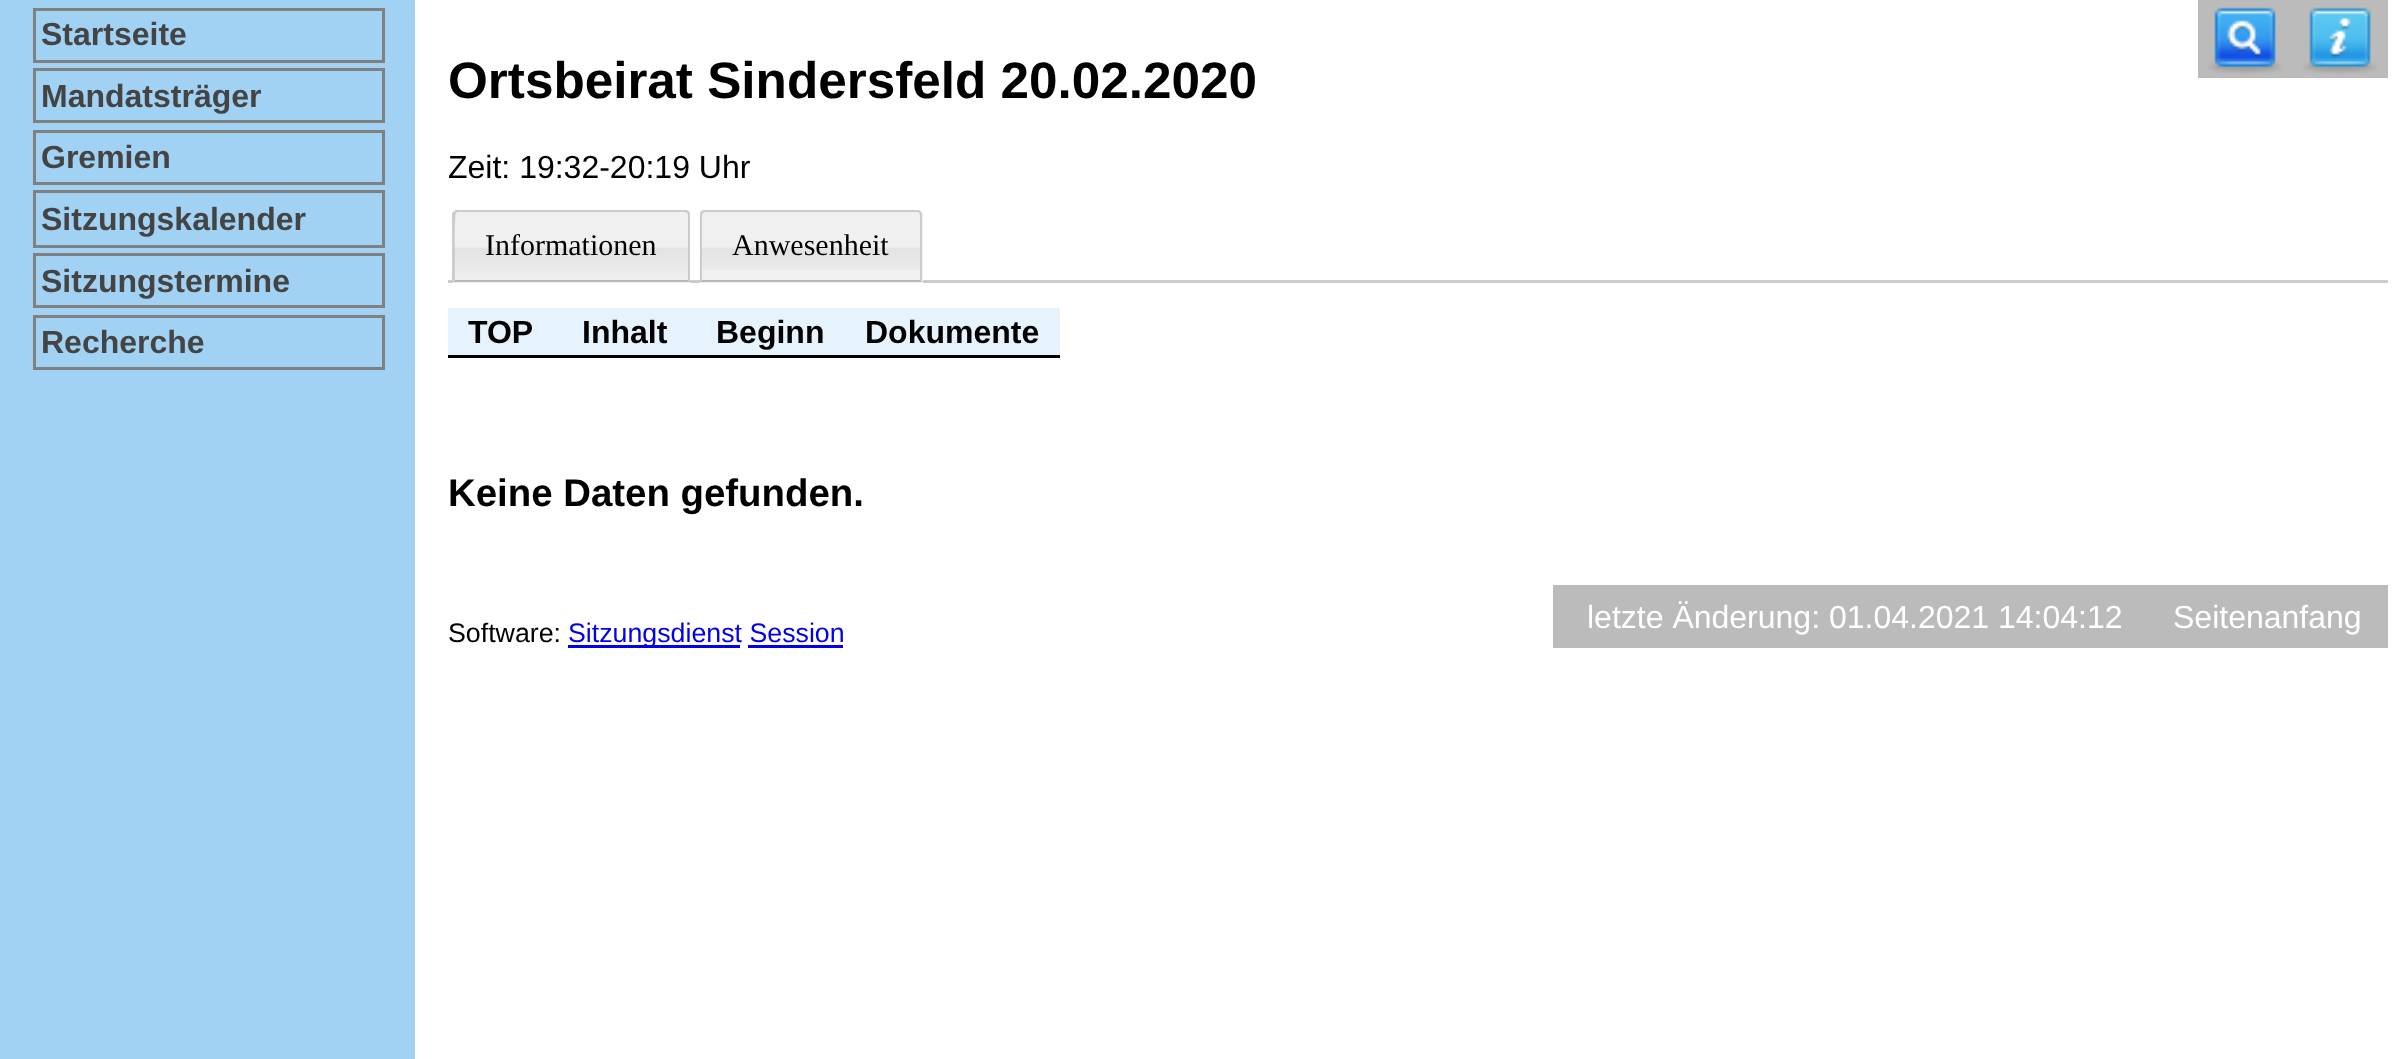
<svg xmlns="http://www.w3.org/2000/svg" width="2402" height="1059">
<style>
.a{font:bold 32px Liberation Sans;fill:#444}
.b{font:bold 51.25px Liberation Sans;fill:#000}
.c{font:32px Liberation Sans;fill:#000}
.d{font:30px Liberation Serif;fill:#000}
.e{font:bold 32px Liberation Sans;fill:#000}
.f{font:bold 38.4px Liberation Sans;fill:#000}
.g{font:26.75px Liberation Sans;fill:#000}
.h{font:26.75px Liberation Sans;fill:#00e}
.i{font:32px Liberation Sans;fill:#fff}
</style>
<rect width="100%" height="100%" fill="#fff"/>
<path fill="#a1d1f3" d="M0 0h415v1059H0z"/>
<path fill="none" stroke="#808080" stroke-width="3" d="M34.5 9.5h349v52H34.5z"/>
<path fill="none" stroke="#808080" stroke-width="3" d="M34.5 69.5h349v52H34.5z"/>
<path fill="none" stroke="#808080" stroke-width="3" d="M34.5 131.5h349v52H34.5z"/>
<path fill="none" stroke="#808080" stroke-width="3" d="M34.5 191.5h349v55H34.5z"/>
<path fill="none" stroke="#808080" stroke-width="3" d="M34.5 254.5h349v52H34.5z"/>
<path fill="none" stroke="#808080" stroke-width="3" d="M34.5 316.5h349v52H34.5z"/>
<path fill="#bbb" d="M2198 0h190v78H2198z"/>
<image href="1.png" x="2208" y="7" width="74" height="67"/>
<image href="2.png" x="2303" y="7" width="74" height="67"/>
<path fill="#ccc" d="M448 280h1940v3H448z"/>
<path fill="#f0f0f0" d="M458 210h227c3 0 5 2 5 5v68h-237v-68c0-3 2-5 5-5z"/>
<image href="3.png" x="452" y="247" width="238" height="35"/>
<path fill="#ccc" d="M458 210c-2 0-3 0-4 1l2 2c0 0 1-1 2-1h227l2 1l2-2c-1-1-3-1-4-1z"/>
<path fill="#ccc" d="M690 282v-68l-1-3l-2 2l1 2v65z"/>
<path fill="#b7b7b7" d="M690 282h-237l2-2h233z"/>
<path fill="#ccc" d="M452 213l2-2l2 2c-2 3-1 59-1 67l-3 2z"/>
<path fill="#f0f0f0" d="M705 210h213c3 0 5 2 5 5v68h-223v-68c0-3 2-5 5-5z"/>
<image href="4.png" x="702" y="247" width="218" height="23"/>
<path fill="#ccc" d="M705 210c-1 0-3 0-4 1l2 2l2-1h213l1 1l2-1c-1-1-2-2-3-2z"/>
<path fill="#ccc" d="M921 212c1 0 1 2 1 3v67l-2-2v-65l-1-2z"/>
<path fill="#b7b7b7" d="M922 282l-2-2h-218l-2 2z"/>
<path fill="#ccc" d="M700 215v67l2-2v-65l1-2l-2-2c-1 1-1 3-1 4z"/>
<path fill="#e6f3fc" d="M448 308h612v47H448z"/>
<path fill="#000" d="M448 355h612v3H448z"/>
<path fill="#00e" d="M568 645h172v3H568z"/>
<path fill="#00e" d="M748 645h95v3H748z"/>
<path fill="#bbb" d="M1553 585h835v63H1553z"/>
<text class="a" x="41" y="45">Startseite</text>
<text class="a" x="41" y="107">Mandatsträger</text>
<text class="a" x="41" y="168">Gremien</text>
<text class="a" x="41" y="230">Sitzungskalender</text>
<text class="a" x="41" y="292">Sitzungstermine</text>
<text class="a" x="41" y="353">Recherche</text>
<text class="b" x="448" y="98">Ortsbeirat Sindersfeld 20.02.2020</text>
<text class="c" x="448" y="178">Zeit: 19:32-20:19 Uhr</text>
<text class="d" x="485" y="255">Informationen</text>
<text class="d" x="732" y="255">Anwesenheit</text>
<text class="e" x="468" y="343">TOP</text>
<text class="e" x="582" y="343">Inhalt</text>
<text class="e" x="716" y="343">Beginn</text>
<text class="e" x="865" y="343">Dokumente</text>
<text class="f" x="448" y="506">Keine Daten gefunden.</text>
<text class="g" x="448" y="642">Software:</text>
<text class="h" x="568" y="642">Sitzungsdienst Session</text>
<text class="i" x="1587" y="628">letzte Änderung: 01.04.2021 14:04:12</text>
<text class="i" x="2173" y="628">Seitenanfang</text>
</svg>
